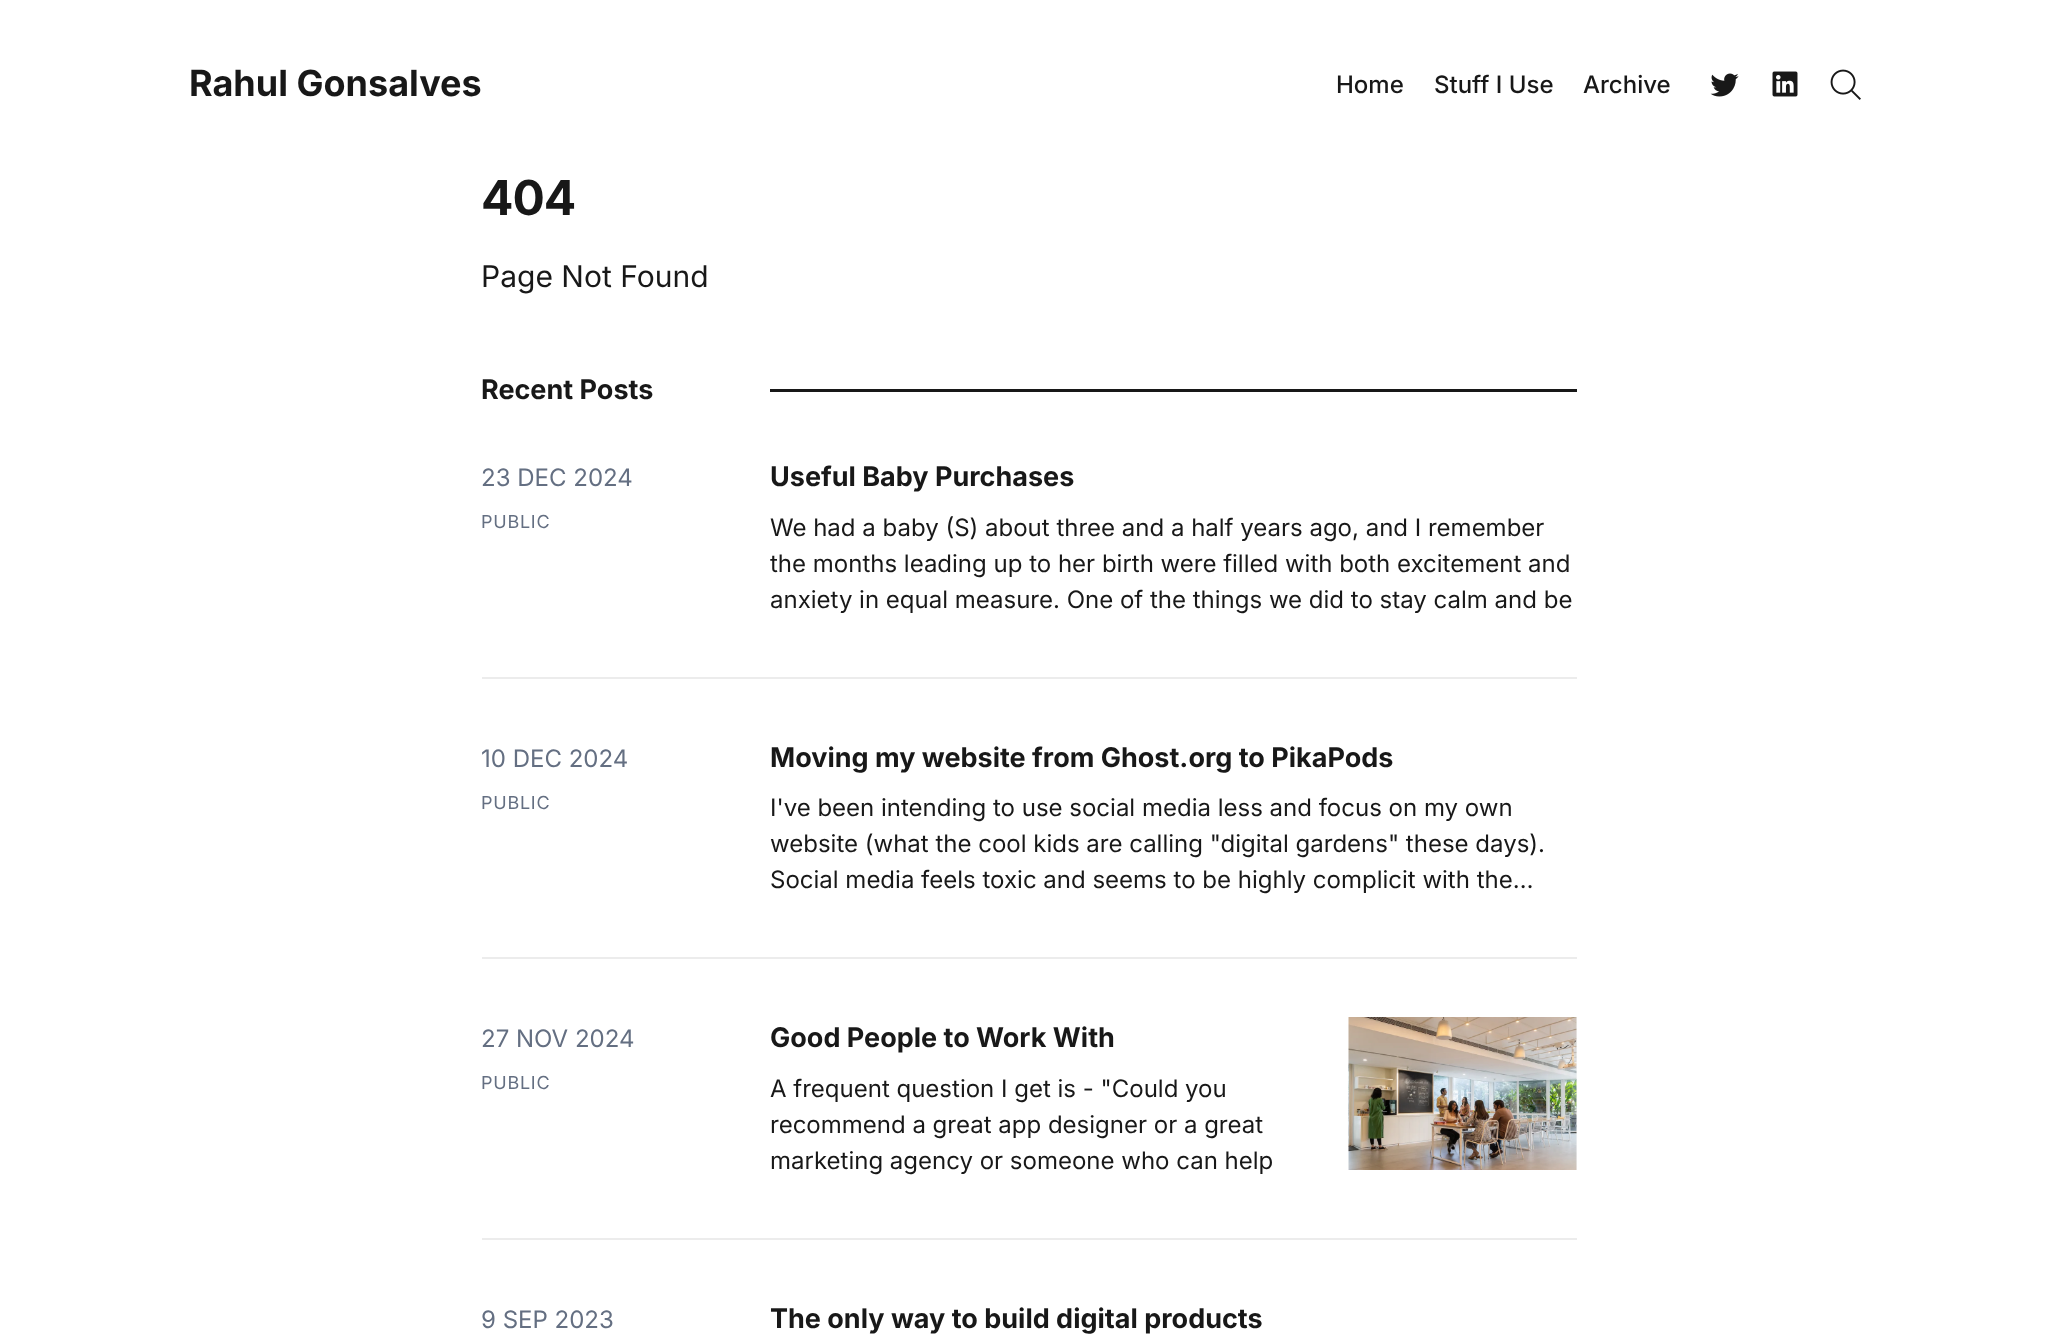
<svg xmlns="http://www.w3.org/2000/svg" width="2057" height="1334">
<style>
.a{font:bold 36px Inter;fill:#181818}
.b{font:500 24px Inter;fill:#181818}
.c{font:bold 48px Inter;letter-spacing:-1px;fill:#181818}
.d{font:30px Inter;fill:#181818}
.e{font:bold 27px Inter;fill:#181818}
.f{font:24px Inter;fill:#646f82}
.g{font:18px Inter;letter-spacing:0.75px;fill:#646f82}
.h{font:24px Inter;fill:#181818}
</style>
<rect width="100%" height="100%" fill="#fff"/>
<image href="1.png" x="1710" y="73" width="29" height="24"/>
<image href="2.png" x="1772" y="71" width="26" height="26"/>
<image href="3.png" x="1830" y="69" width="31" height="31"/>
<path fill="#181818" d="M770 389h807v3H770z"/>
<path fill="#ececec" d="M482 677h1095v2H482z"/>
<path fill="#ececec" d="M482 957h1095v2H482z"/>
<path fill="#f6f6f6" d="M1576 1017h1v153H1576z"/>
<image href="4.png" x="1348" y="1017" width="229" height="153"/>
<path fill="#ececec" d="M482 1238h1095v2H482z"/>
<text class="a" x="189" y="96">Rahul Gonsalves</text>
<text class="b" x="1336" y="93">Home</text>
<text class="b" x="1434" y="93">Stuff I Use</text>
<text class="b" x="1583" y="93">Archive</text>
<text class="c" x="481" y="215">404</text>
<text class="d" x="481" y="287">Page Not Found</text>
<text class="e" x="481" y="399">Recent Posts</text>
<text class="f" x="481" y="486">23 DEC 2024</text>
<text class="g" x="481" y="528">PUBLIC</text>
<text class="e" x="770" y="486">Useful Baby Purchases</text>
<text class="h" x="770" y="536">We had a baby (S) about three and a half years ago, and I remember</text>
<text class="h" x="770" y="572">the months leading up to her birth were filled with both excitement and</text>
<text class="h" x="770" y="608">anxiety in equal measure. One of the things we did to stay calm and be</text>
<text class="f" x="481" y="767">10 DEC 2024</text>
<text class="g" x="481" y="809">PUBLIC</text>
<text class="e" x="770" y="767">Moving my website from Ghost.org to PikaPods</text>
<text class="h" x="770" y="816">I've been intending to use social media less and focus on my own</text>
<text class="h" x="770" y="852">website (what the cool kids are calling "digital gardens" these days).</text>
<text class="h" x="770" y="888">Social media feels toxic and seems to be highly complicit with the…</text>
<text class="f" x="481" y="1047">27 NOV 2024</text>
<text class="g" x="481" y="1089">PUBLIC</text>
<text class="e" x="770" y="1047">Good People to Work With</text>
<text class="h" x="770" y="1097">A frequent question I get is - "Could you</text>
<text class="h" x="770" y="1133">recommend a great app designer or a great</text>
<text class="h" x="770" y="1169">marketing agency or someone who can help</text>
<text class="f" x="481" y="1328">9 SEP 2023</text>
<text class="e" x="770" y="1328">The only way to build digital products</text>
</svg>
